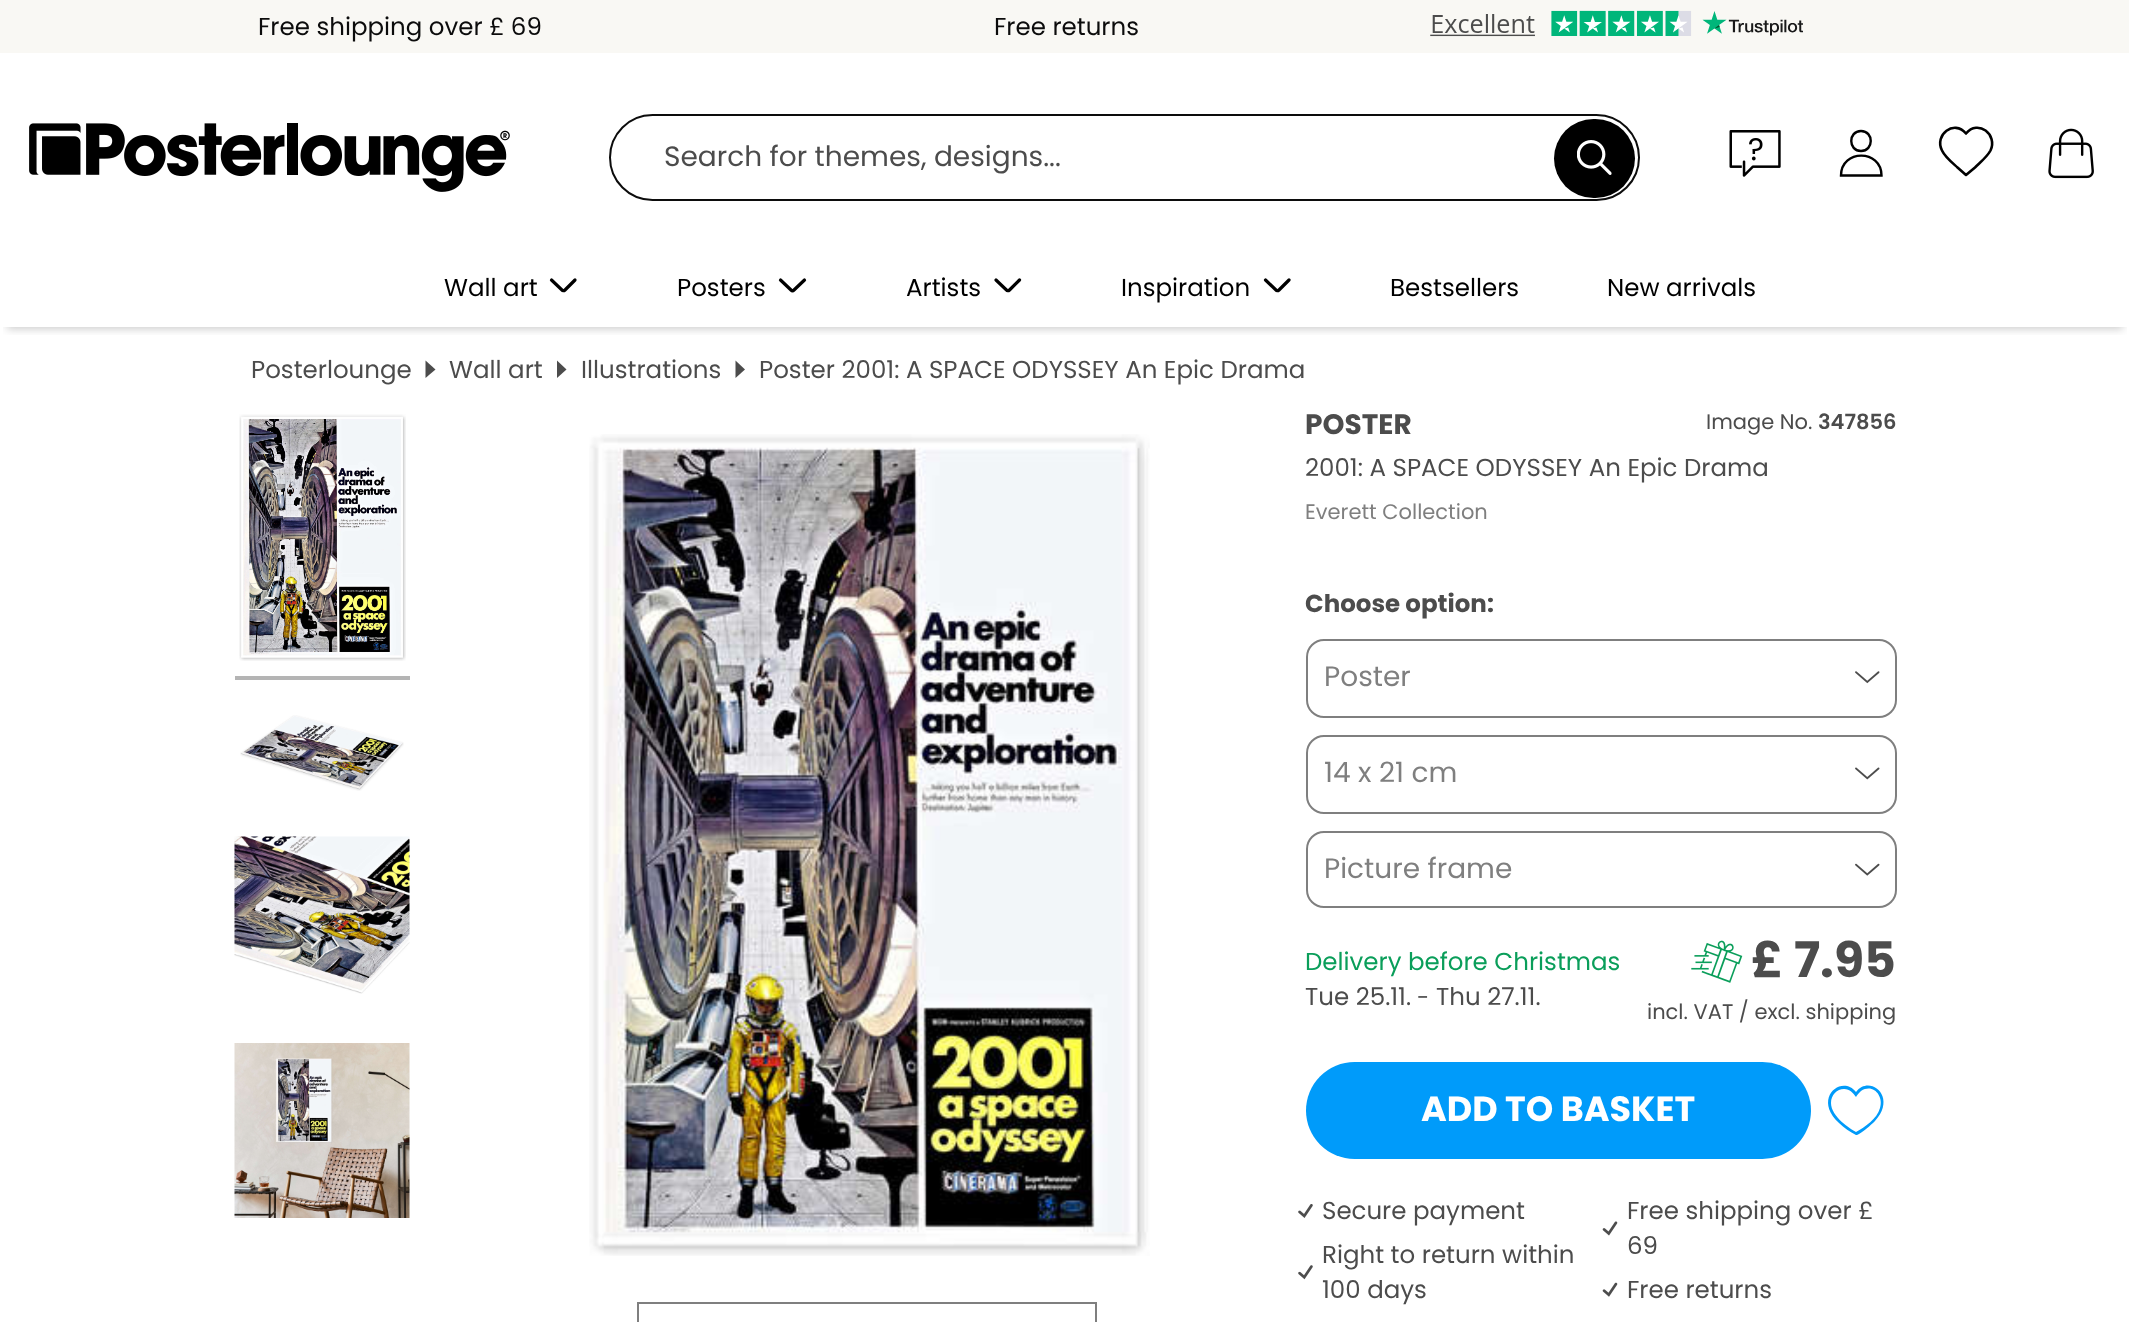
<svg xmlns="http://www.w3.org/2000/svg" width="2129" height="1322">
<style>
.a{font:24.5px Poppins;fill:#0c0c0c}
.b{font:28px Poppins;fill:#4c4c4c}
.c{font:24.5px Poppins;fill:#000}
.d{font:24.5px Poppins;fill:#4c4c4c}
.e{font:bold 28px Poppins;fill:#4c4c4c}
.f{font:21px Poppins;fill:#4c4c4c}
.g{font:600 21px Poppins;fill:#4c4c4c}
.h{font:21px Poppins;fill:#7f7f7f}
.i{font:bold 24.5px Poppins;fill:#4c4c4c}
.j{font:28px Poppins;fill:#7f7f7f}
.k{font:24.5px Poppins;fill:#0a9e5a}
.l{font:22px Poppins;fill:#4c4c4c}
.m{font:bold 49px Poppins;fill:#4c4c4c}
.n{font:bold 35px Poppins;fill:#fff}
</style>
<defs>
<clipPath id="clip1"><path d="M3 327h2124v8H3z"/></clipPath>
</defs>
<rect width="100%" height="100%" fill="#fff"/>
<g clip-path="url(#clip1)">
<path fill="#00000033" filter="blur(4.5px)" d="M7 16h2116v313H7z"/>
</g>
<path fill="#f9f8f4" d="M0 0h2129v53H0z"/>
<image href="1.png" x="1430" y="10" width="373" height="27"/>
<image href="2.png" x="29" y="123" width="481" height="69"/>
<rect fill="none" stroke="#0c0c0c" stroke-width="2" x="610" y="115" width="1029" height="85" rx="42.5"/>
<rect fill="#000" x="1554" y="119" width="81" height="79" rx="39.5"/>
<image href="3.png" x="1577" y="140" width="35" height="35"/>
<image href="4.png" x="1729" y="130" width="52" height="47"/>
<path fill="none" stroke="#000" stroke-width="2.4" d="M1861 151c13 0 13-20 0-20c-13 0-13 20 0 20zm20.5 24.5c0-26.5-40.5-26.5-40.5 0z"/>
<path fill="none" stroke="#000" stroke-width="2.6" stroke-linecap="round" stroke-linejoin="round" d="M1966 133.5c-12-14.5-32 1.5-24 17c3 6.5 10 12 15.5 17l8.5 7.5l9-7.5c5-5 12-10.5 15.5-17c7.5-16-12.5-31.5-24.5-17z"/>
<image href="5.png" x="2048" y="128" width="46" height="51"/>
<path fill="none" stroke="#000" stroke-width="3.2" stroke-linecap="round" d="M551.5 280l10.5 10c.5 1 2 1 3 0l10-10"/>
<path fill="none" stroke="#000" stroke-width="3.2" stroke-linecap="round" d="M780.5 280l10.5 10c1 1 2 1 3 0l10.5-10"/>
<path fill="none" stroke="#000" stroke-width="3.2" stroke-linecap="round" d="M996 280l10.5 10c.5 1 2 1 3 0l10-10"/>
<path fill="none" stroke="#000" stroke-width="3.2" stroke-linecap="round" d="M1265.5 280l10.5 10c.5 1 2 1 3 0l10-10"/>
<path fill="#4c4c4c" d="M425.5 360.5v17.5l10-8.5z"/>
<path fill="#4c4c4c" d="M557 360.5v17.5l9.5-8.5z"/>
<path fill="#4c4c4c" d="M735.5 360.5v17.5l9.5-8.5z"/>
<image href="6.png" x="239" y="414" width="167" height="247"/>
<path fill="#b4b4b4" d="M235 676h175v4H235z"/>
<image href="7.png" x="240" y="715" width="164" height="76"/>
<image href="8.png" x="234" y="836" width="176" height="158"/>
<image href="9.png" x="234" y="1043" width="176" height="175"/>
<image href="10.png" x="589" y="434" width="561" height="822"/>
<path fill="none" stroke="#7f7f7f" stroke-width="2" d="M638 1303h458v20H638z"/>
<image href="11.png" x="1855" y="671" width="25" height="13"/>
<rect fill="none" stroke="#7f7f7f" stroke-width="2" x="1307" y="640" width="589" height="77" rx="17"/>
<image href="12.png" x="1855" y="767" width="25" height="13"/>
<rect fill="none" stroke="#7f7f7f" stroke-width="2" x="1307" y="736" width="589" height="77" rx="17"/>
<image href="13.png" x="1855" y="863" width="25" height="13"/>
<rect fill="none" stroke="#7f7f7f" stroke-width="2" x="1307" y="832" width="589" height="75" rx="17"/>
<image href="14.png" x="1691" y="940" width="52" height="43"/>
<rect fill="#009bfa" x="1306" y="1062" width="505" height="97" rx="48.5"/>
<path fill="#009bfa" d="M1856 1135c-6-3-12-7-17-12c-27-25 3-49 17-31c13-18 42 4 19 29c-4 4-13 12-18 14zm-12-46c-7 0-13 6-13 14c0 14 20 26 25 29c9-5 21-13 24-24c4-12-7-25-19-17c-2 2-4 4-5 6c-3-4-6-8-12-8z"/>
<image href="15.png" x="1298" y="1204" width="15" height="14"/>
<image href="16.png" x="1298" y="1265" width="15" height="15"/>
<image href="17.png" x="1602" y="1221" width="16" height="15"/>
<image href="18.png" x="1602" y="1282" width="16" height="15"/>
<text class="a" x="258" y="35">Free shipping over £ 69</text>
<text class="a" x="994" y="35">Free returns</text>
<text class="b" x="664" y="166">Search for themes, designs...</text>
<text class="c" x="444" y="296">Wall art</text>
<text class="c" x="677" y="296">Posters</text>
<text class="c" x="906" y="296">Artists</text>
<text class="c" x="1121" y="296">Inspiration</text>
<text class="c" x="1390" y="296">Bestsellers</text>
<text class="c" x="1607" y="296">New arrivals</text>
<text class="d" x="251" y="378">Posterlounge</text>
<text class="d" x="449" y="378">Wall art</text>
<text class="d" x="581" y="378">Illustrations</text>
<text class="d" x="759" y="378">Poster 2001: A SPACE ODYSSEY An Epic Drama</text>
<text class="e" x="1305" y="434">POSTER</text>
<text class="f" x="1706" y="429">Image No.</text>
<text class="g" x="1818" y="429">347856</text>
<text class="d" x="1305" y="476">2001: A SPACE ODYSSEY An Epic Drama</text>
<text class="h" x="1305" y="519">Everett Collection</text>
<text class="i" x="1305" y="612">Choose option:</text>
<text class="j" x="1324" y="686">Poster</text>
<text class="j" x="1324" y="782">14 x 21 cm</text>
<text class="j" x="1324" y="878">Picture frame</text>
<text class="k" x="1305" y="970">Delivery before Christmas</text>
<text class="d" x="1305" y="1005">Tue 25.11.</text>
<text class="l" x="1417" y="1005">-</text>
<text class="d" x="1436" y="1005">Thu 27.11.</text>
<text class="m" x="1751" y="977">£ 7.95</text>
<text class="f" x="1647" y="1019">incl. VAT / excl. shipping</text>
<text class="n" x="1421" y="1121">ADD TO BASKET</text>
<text class="d" x="1322" y="1219">Secure payment</text>
<text class="d" x="1322" y="1263">Right to return within</text>
<text class="d" x="1322" y="1298">100 days</text>
<text class="d" x="1627" y="1219">Free shipping over £</text>
<text class="d" x="1627" y="1254">69</text>
<text class="d" x="1627" y="1298">Free returns</text>
</svg>
